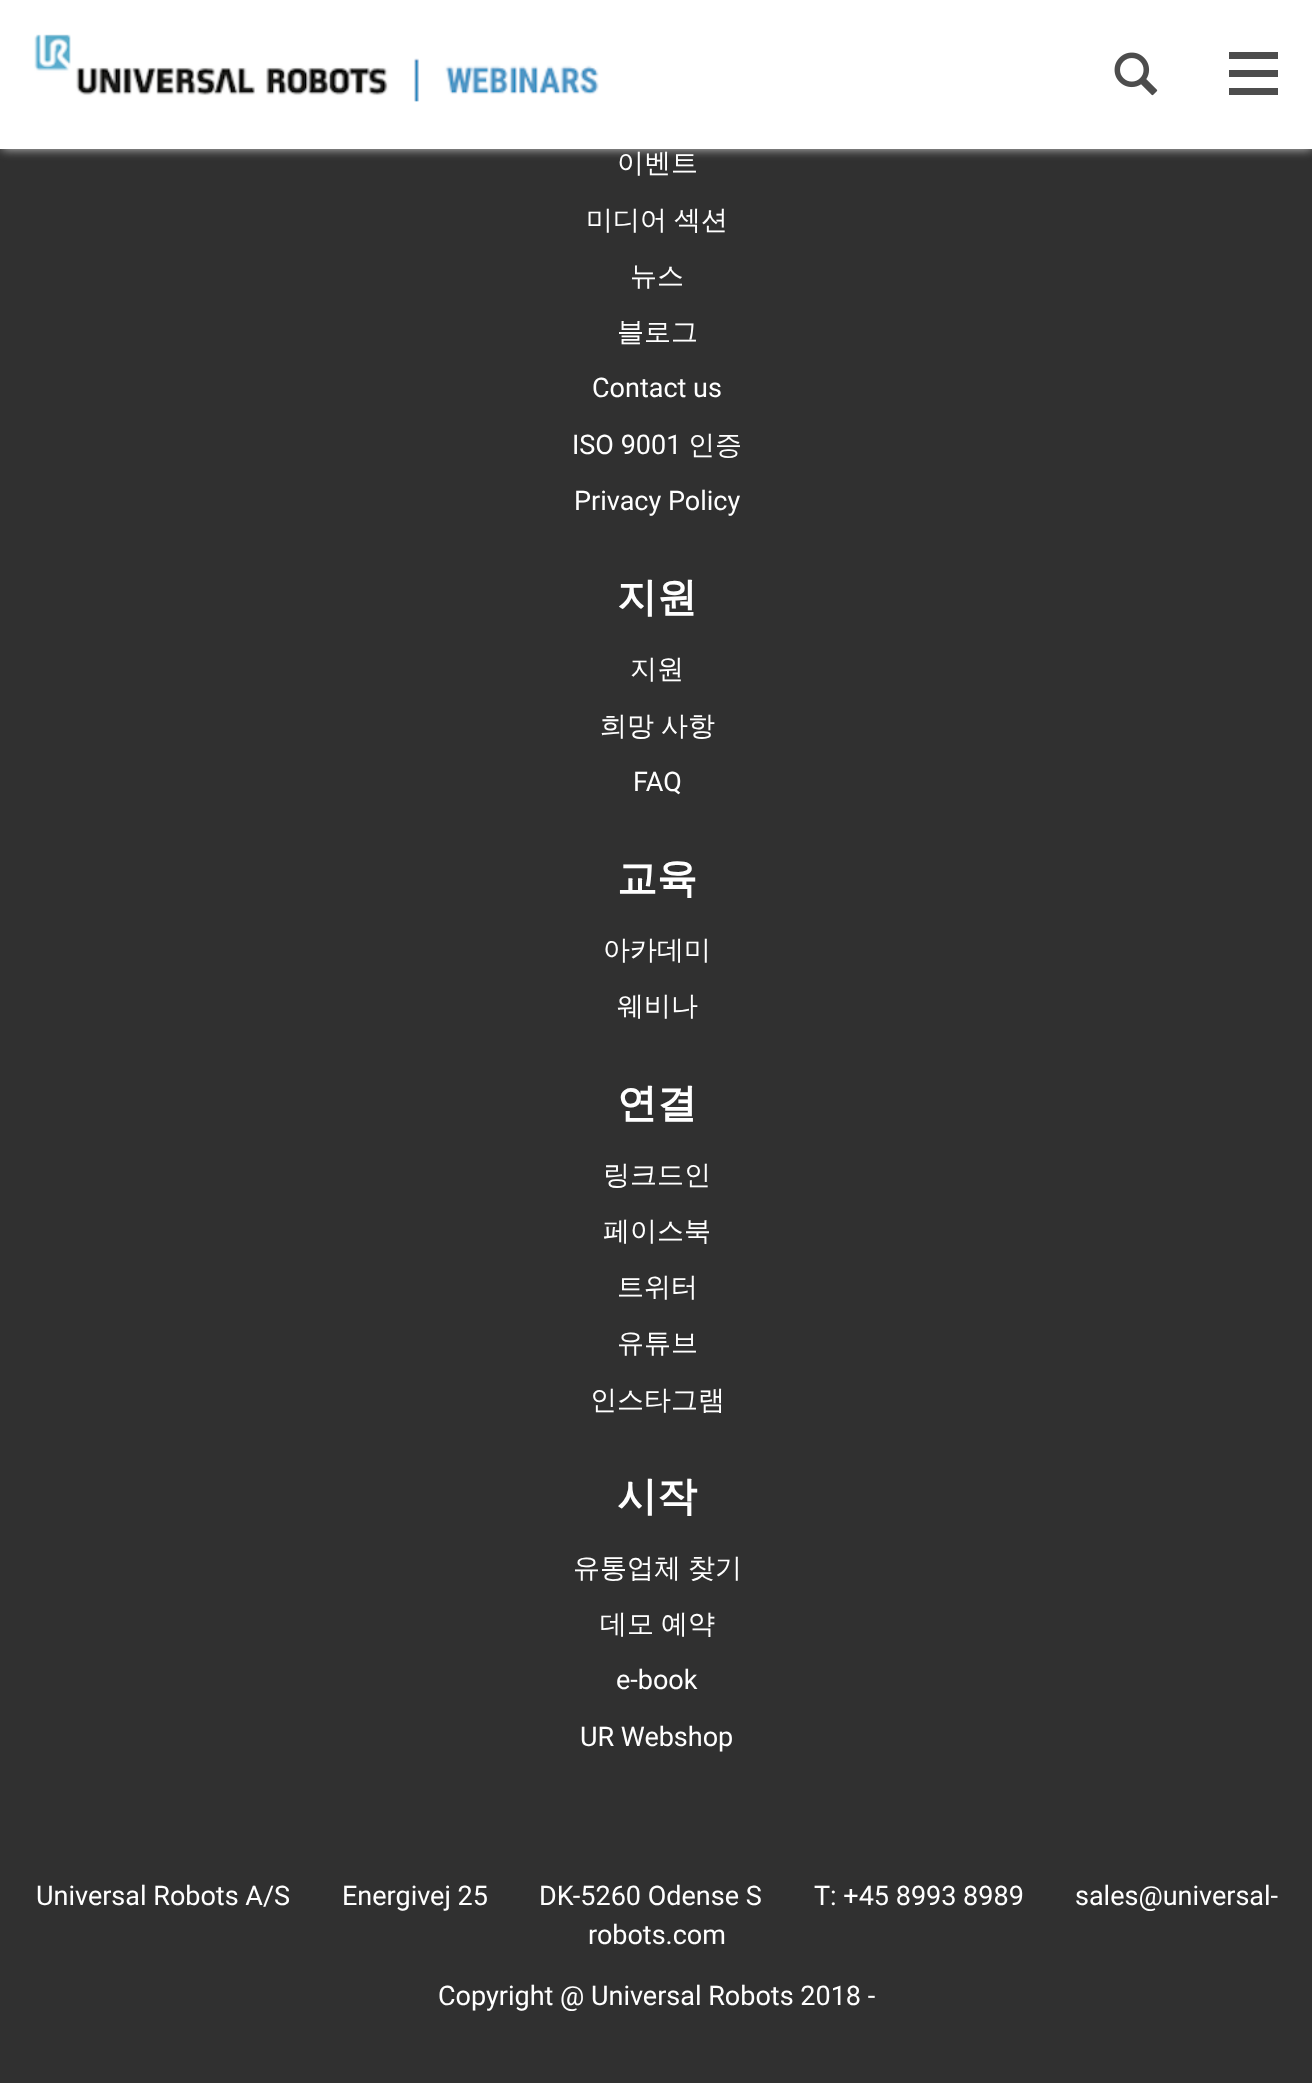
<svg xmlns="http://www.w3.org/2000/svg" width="1312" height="2083">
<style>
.a{font:500 27px WenQuanYi Zen Hei;fill:#fff}
.b{font:27px Roboto;fill:#fff}
.c{font:bold 40px WenQuanYi Zen Hei;fill:#fff}
</style>
<rect width="100%" height="100%" fill="#303030"/>
<path fill="#ccc" filter="blur(5.5px)" d="M2 -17h1310v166H2z"/>
<path fill="#fff" d="M0 0h1312v149H0z"/>
<image href="1.png" x="34" y="34" width="565" height="68"/>
<image href="2.png" x="1114" y="52" width="44" height="44"/>
<path fill="#4d4d4d" d="M1229 52h49v7H1229z"/>
<path fill="#4d4d4d" d="M1229 70h49v7H1229z"/>
<path fill="#4d4d4d" d="M1229 88h49v7H1229z"/>
<text class="a" x="617" y="172">이벤트</text>
<text class="a" x="586" y="229" word-spacing="-1">미디어 섹션</text>
<text class="a" x="630" y="285">뉴스</text>
<text class="a" x="617" y="341">블로그</text>
<text class="b" x="592" y="397">Contact us</text>
<text class="b" x="572" y="454">ISO 9001</text>
<text class="a" x="688" y="454">인증</text>
<text class="b" x="574" y="510">Privacy Policy</text>
<text class="c" x="617" y="611">지원</text>
<text class="a" x="630" y="678">지원</text>
<text class="a" x="600" y="735" word-spacing="-1">희망 사항</text>
<text class="b" x="633" y="791">FAQ</text>
<text class="c" x="617" y="892">교육</text>
<text class="a" x="603" y="959">아카데미</text>
<text class="a" x="617" y="1015">웨비나</text>
<text class="c" x="617" y="1117">연결</text>
<text class="a" x="603" y="1184">링크드인</text>
<text class="a" x="603" y="1240">페이스북</text>
<text class="a" x="617" y="1296">트위터</text>
<text class="a" x="617" y="1352">유튜브</text>
<text class="a" x="590" y="1409">인스타그램</text>
<text class="c" x="617" y="1510">시작</text>
<text class="a" x="573" y="1577" word-spacing="-1">유통업체 찾기</text>
<text class="a" x="600" y="1633" word-spacing="-1">데모 예약</text>
<text class="b" x="616" y="1689">e-book</text>
<text class="b" x="580" y="1746">UR Webshop</text>
<text class="b" x="36" y="1905">Universal Robots A/S</text>
<text class="b" x="342" y="1905">Energivej 25</text>
<text class="b" x="539" y="1905">DK-5260 Odense S</text>
<text class="b" x="814" y="1905">T: +45 8993 8989</text>
<text class="b" x="1075" y="1905">sales@universal-</text>
<text class="b" x="588" y="1944">robots.com</text>
<text class="b" x="438" y="2005">Copyright @ Universal Robots 2018 -</text>
</svg>
